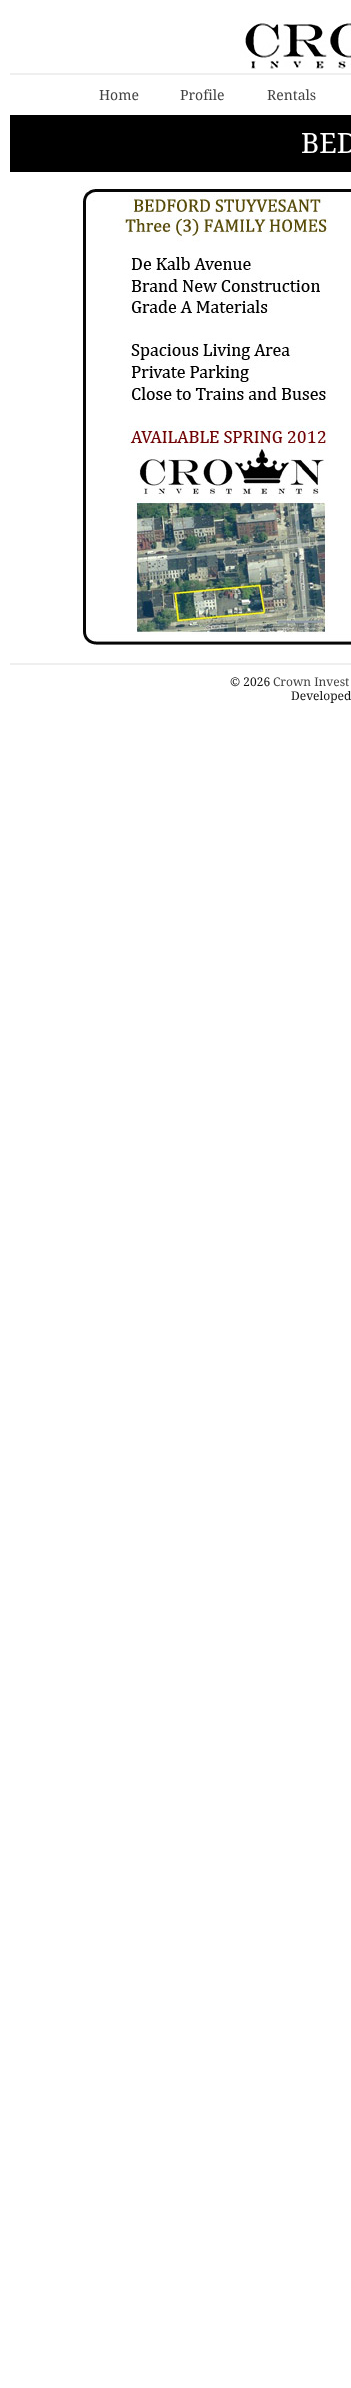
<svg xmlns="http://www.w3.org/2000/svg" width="351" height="2388">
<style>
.a{font:14px Droid Serif;fill:#434343}
.b{font:28px Droid Serif;fill:#fff}
.c{font:12px Droid Serif;fill:#111}
.d{font:12px Droid Serif;fill:#434343}
</style>
<rect width="100%" height="100%" fill="#fff"/>
<path fill="#efefef" d="M10 73h341v2H10z"/>
<image href="1.png" x="240" y="20" width="111" height="49"/>
<path fill="#000" d="M10 115h341v57H10z"/>
<image href="2.png" x="81" y="186" width="270" height="460"/>
<path fill="#efefef" d="M10 663h341v2H10z"/>
<text class="a" x="99" y="100">Home</text>
<text class="a" x="180" y="100">Profile</text>
<text class="a" x="267" y="100">Rentals</text>
<text class="b" x="301" y="153">BED</text>
<text class="c" x="230" y="686">© 2026</text>
<text class="d" x="273" y="686">Crown Invest</text>
<text class="c" x="291" y="700">Developed</text>
</svg>
